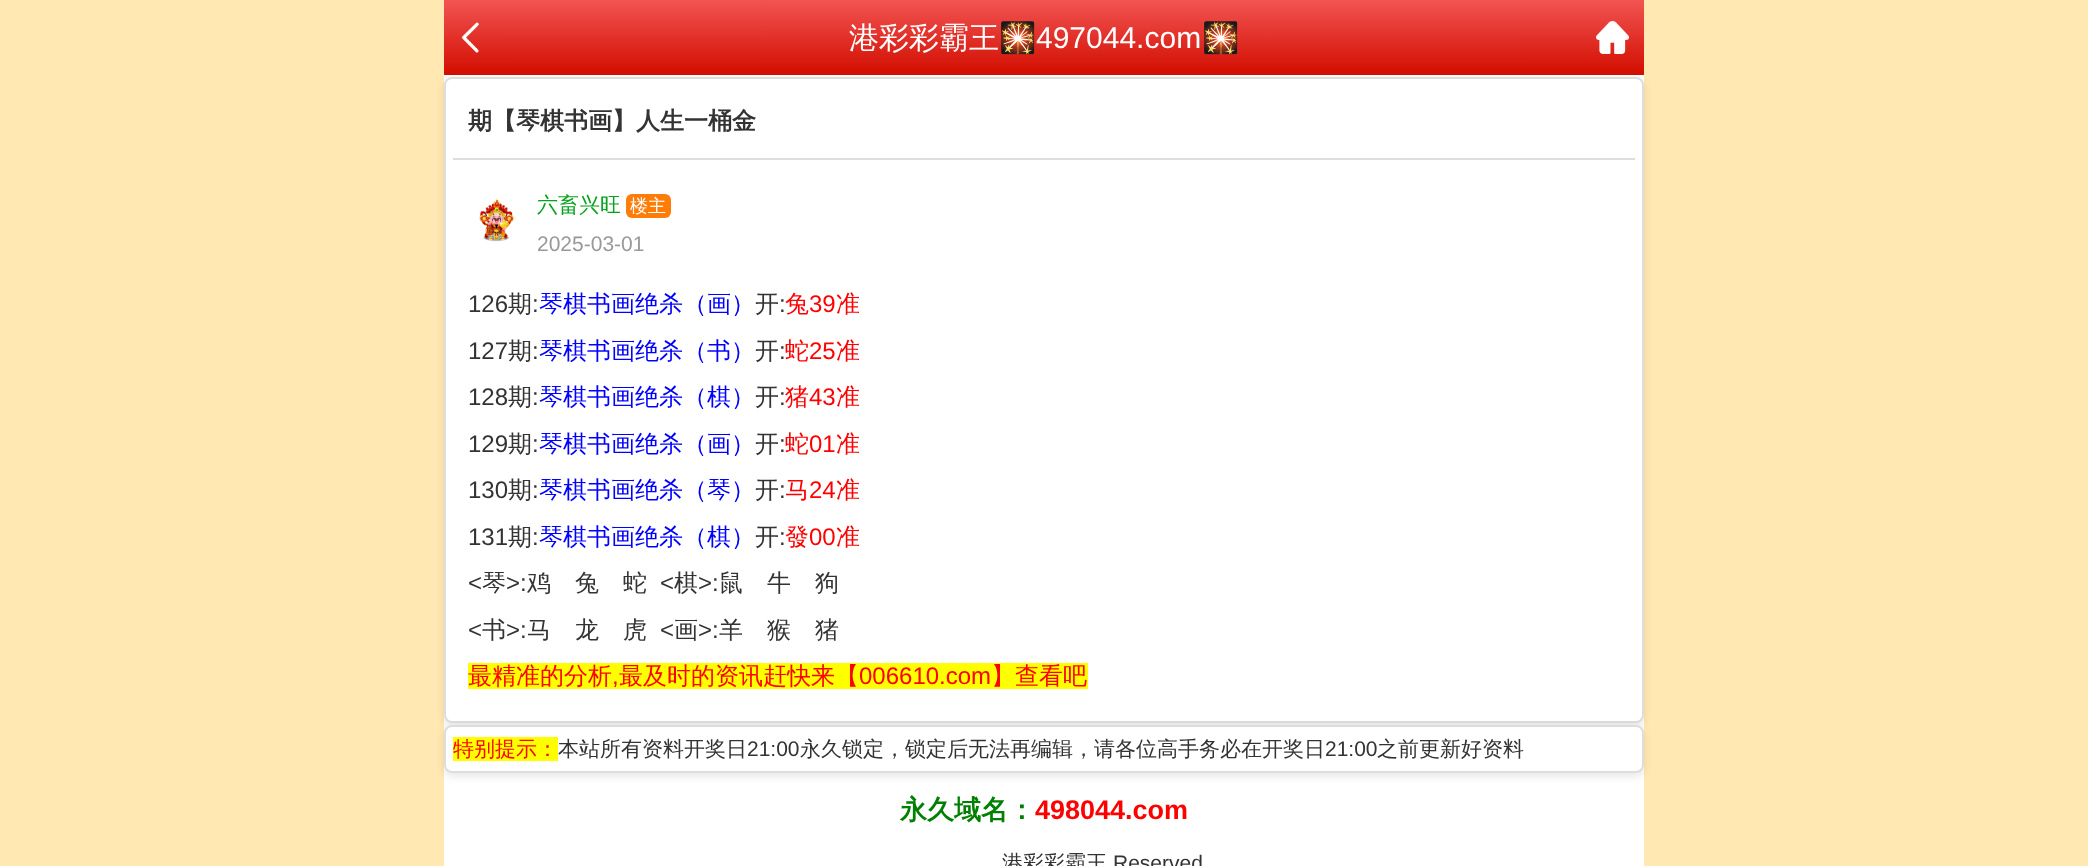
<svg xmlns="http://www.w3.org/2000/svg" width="2088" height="866">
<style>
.a{font:500 30px WenQuanYi Zen Hei;fill:#fff}
.b{font:30px Noto Color Emoji;fill:#fff}
.c{font:30px Liberation Sans;fill:#fff}
.d{font:bold 24px WenQuanYi Zen Hei;fill:#333}
.e{font:500 21px WenQuanYi Zen Hei;fill:#07a21e}
.f{font:500 18px WenQuanYi Zen Hei;fill:#fff}
.g{font:21px Liberation Sans;fill:#999}
.h{font:24px Liberation Sans;fill:#333}
.i{font:500 24px WenQuanYi Zen Hei;fill:#333}
.j{font:500 24px WenQuanYi Zen Hei;fill:#00f}
.k{font:500 24px WenQuanYi Zen Hei;fill:#f00}
.l{font:24px Liberation Sans;fill:#f00}
.m{font:500 21px WenQuanYi Zen Hei;fill:#f00}
.n{font:500 21px WenQuanYi Zen Hei;fill:#333}
.o{font:21px Liberation Sans;fill:#333}
.p{font:bold 27px WenQuanYi Zen Hei;fill:#008000}
.q{font:bold 27px Liberation Sans;fill:#f00}
</style>
<defs>
<linearGradient id="g1" gradientUnits="userSpaceOnUse" x1="1044" y1="75" x2="1044" y2="0"><stop offset="0" stop-color="#d20d00"/><stop offset="1" stop-color="#f25452"/></linearGradient>
</defs>
<rect width="100%" height="100%" fill="#ffe8b1"/>
<path fill="#fff" d="M444 75h1200v791H444z"/>
<rect fill="#0000001a" filter="blur(4px)" x="444" y="80" width="1200" height="646" rx="8"/>
<path fill="url(#g1)" d="M444 0h1200v75H444z"/>
<image href="1.png" x="461" y="22" width="18" height="31"/>
<image href="2.png" x="1596" y="21" width="33" height="33"/>
<rect fill="#fff" stroke="#ddd" stroke-width="2" x="445" y="78" width="1198" height="644" rx="7"/>
<path fill="#ddd" d="M453 158h1182v2H453z"/>
<image href="3.png" x="479" y="198" width="35" height="44"/>
<rect fill="#ff7c07" x="626" y="194" width="45" height="24" rx="6"/>
<path fill="#ff0" d="M468 663h620v26H468z"/>
<rect fill="#0000001a" filter="blur(4px)" x="444" y="728" width="1200" height="48" rx="8"/>
<rect fill="#fff" stroke="#ddd" stroke-width="2" x="445" y="726" width="1198" height="46" rx="7"/>
<path fill="#ff0" d="M453 737h105v24H453z"/>
<text class="a" x="849" y="48">港彩彩霸王</text>
<text class="b" x="999" y="48">🎇</text>
<text class="c" x="1036" y="48">497044.com</text>
<text class="b" x="1202" y="48">🎇</text>
<text class="d" x="468" y="129">期【琴棋书画】人生一桶金</text>
<text class="e" x="537" y="212">六畜兴旺</text>
<text class="f" x="630" y="212">楼主</text>
<text class="g" x="537" y="251">2025-03-01</text>
<text class="h" x="468" y="312">126</text>
<text class="i" x="508" y="312">期</text>
<text class="h" x="532" y="312">:</text>
<text class="j" x="539" y="312">琴棋书画绝杀（画）</text>
<text class="i" x="755" y="312">开</text>
<text class="h" x="779" y="312">:</text>
<text class="k" x="785" y="312">兔</text>
<text class="l" x="809" y="312">39</text>
<text class="k" x="836" y="312">准</text>
<text class="h" x="468" y="359">127</text>
<text class="i" x="508" y="359">期</text>
<text class="h" x="532" y="359">:</text>
<text class="j" x="539" y="359">琴棋书画绝杀（书）</text>
<text class="i" x="755" y="359">开</text>
<text class="h" x="779" y="359">:</text>
<text class="k" x="785" y="359">蛇</text>
<text class="l" x="809" y="359">25</text>
<text class="k" x="836" y="359">准</text>
<text class="h" x="468" y="405">128</text>
<text class="i" x="508" y="405">期</text>
<text class="h" x="532" y="405">:</text>
<text class="j" x="539" y="405">琴棋书画绝杀（棋）</text>
<text class="i" x="755" y="405">开</text>
<text class="h" x="779" y="405">:</text>
<text class="k" x="785" y="405">猪</text>
<text class="l" x="809" y="405">43</text>
<text class="k" x="836" y="405">准</text>
<text class="h" x="468" y="452">129</text>
<text class="i" x="508" y="452">期</text>
<text class="h" x="532" y="452">:</text>
<text class="j" x="539" y="452">琴棋书画绝杀（画）</text>
<text class="i" x="755" y="452">开</text>
<text class="h" x="779" y="452">:</text>
<text class="k" x="785" y="452">蛇</text>
<text class="l" x="809" y="452">01</text>
<text class="k" x="836" y="452">准</text>
<text class="h" x="468" y="498">130</text>
<text class="i" x="508" y="498">期</text>
<text class="h" x="532" y="498">:</text>
<text class="j" x="539" y="498">琴棋书画绝杀（琴）</text>
<text class="i" x="755" y="498">开</text>
<text class="h" x="779" y="498">:</text>
<text class="k" x="785" y="498">马</text>
<text class="l" x="809" y="498">24</text>
<text class="k" x="836" y="498">准</text>
<text class="h" x="468" y="545">131</text>
<text class="i" x="508" y="545">期</text>
<text class="h" x="532" y="545">:</text>
<text class="j" x="539" y="545">琴棋书画绝杀（棋）</text>
<text class="i" x="755" y="545">开</text>
<text class="h" x="779" y="545">:</text>
<text class="k" x="785" y="545">發</text>
<text class="l" x="809" y="545">00</text>
<text class="k" x="836" y="545">准</text>
<text class="h" x="468" y="591">&lt;</text>
<text class="i" x="482" y="591">琴</text>
<text class="h" x="506" y="591">&gt;:</text>
<text class="i" x="527" y="591">鸡</text>
<text class="i" x="575" y="591">兔</text>
<text class="i" x="623" y="591">蛇</text>
<text class="h" x="660" y="591">&lt;</text>
<text class="i" x="674" y="591">棋</text>
<text class="h" x="698" y="591">&gt;:</text>
<text class="i" x="719" y="591">鼠</text>
<text class="i" x="767" y="591">牛</text>
<text class="i" x="815" y="591">狗</text>
<text class="h" x="468" y="638">&lt;</text>
<text class="i" x="482" y="638">书</text>
<text class="h" x="506" y="638">&gt;:</text>
<text class="i" x="527" y="638">马</text>
<text class="i" x="575" y="638">龙</text>
<text class="i" x="623" y="638">虎</text>
<text class="h" x="660" y="638">&lt;</text>
<text class="i" x="674" y="638">画</text>
<text class="h" x="698" y="638">&gt;:</text>
<text class="i" x="719" y="638">羊</text>
<text class="i" x="767" y="638">猴</text>
<text class="i" x="815" y="638">猪</text>
<text class="k" x="468" y="684">最精准的分析</text>
<text class="l" x="612" y="684">,</text>
<text class="k" x="619" y="684">最及时的资讯赶快来【</text>
<text class="l" x="859" y="684">006610.com</text>
<text class="k" x="991" y="684">】查看吧</text>
<text class="m" x="453" y="756">特别提示：</text>
<text class="n" x="558" y="756">本站所有资料开奖日</text>
<text class="o" x="747" y="756">21:00</text>
<text class="n" x="800" y="756">永久锁定，锁定后无法再编辑，请各位高手务必在开奖日</text>
<text class="o" x="1325" y="756">21:00</text>
<text class="n" x="1377" y="756">之前更新好资料</text>
<text class="p" x="900" y="819">永久域名：</text>
<text class="q" x="1035" y="819">498044.com</text>
<text class="n" x="1002" y="870">港彩彩霸王</text>
<text class="o" x="1113" y="870">Reserved</text>
</svg>
